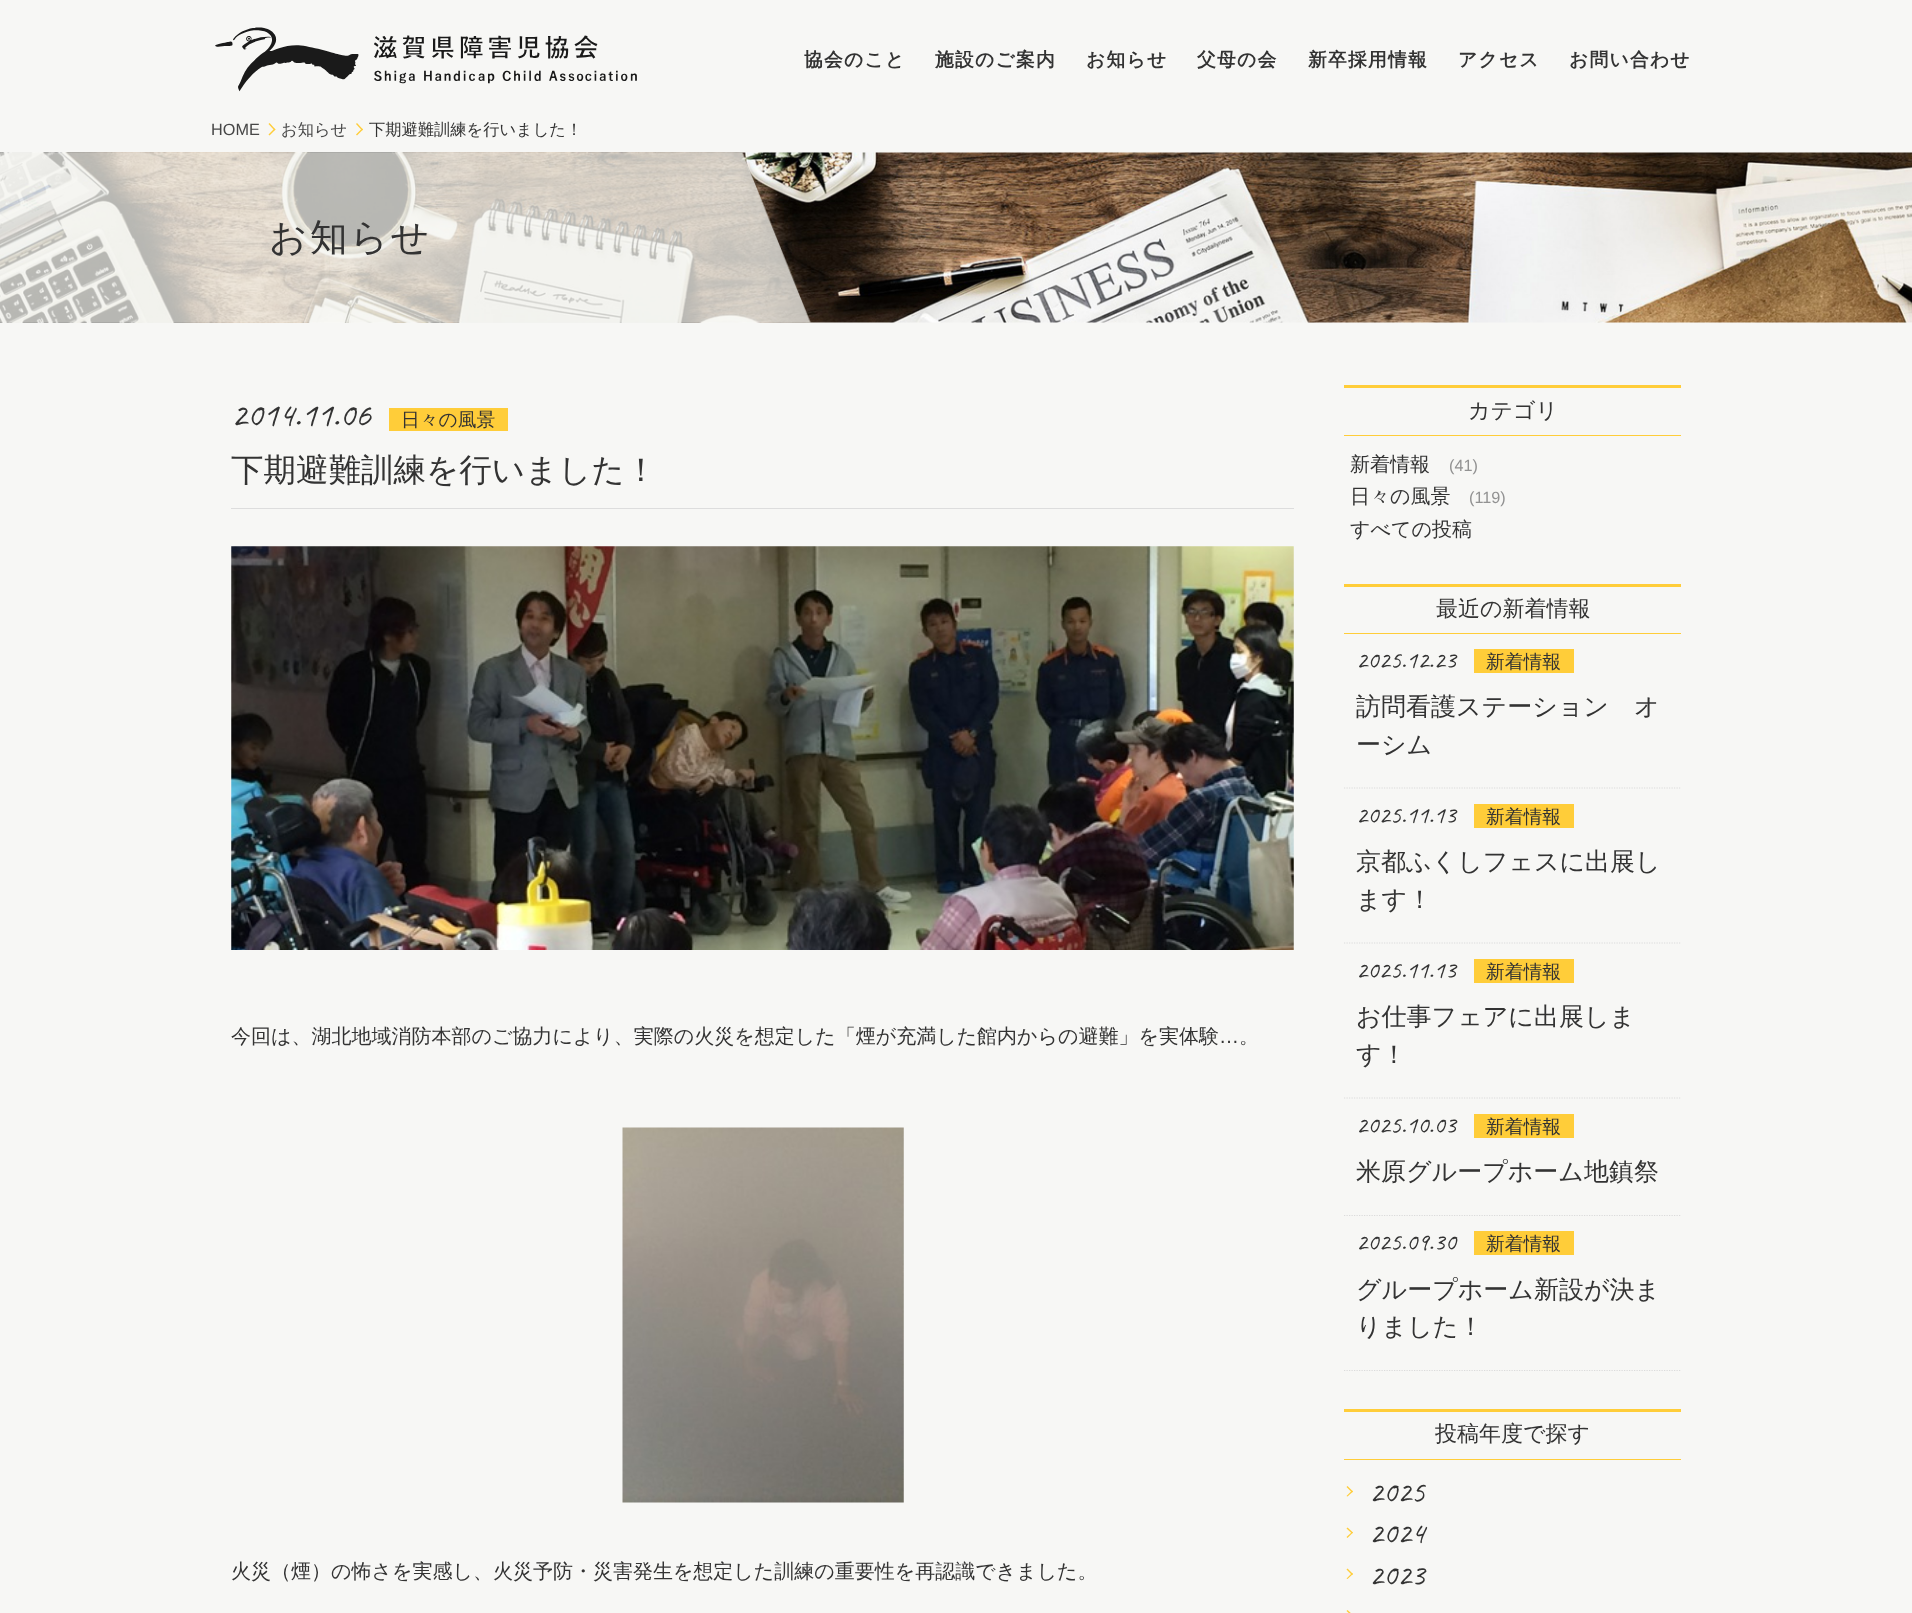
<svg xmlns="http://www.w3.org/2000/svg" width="1912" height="1613">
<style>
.a{font:bold 18.75px WenQuanYi Zen Hei;letter-spacing:1.25px;fill:#333}
.b{font:16.25px Liberation Sans;fill:#474747}
.c{font:500 16.25px WenQuanYi Zen Hei;fill:#474747}
.d{font:500 16.25px WenQuanYi Zen Hei;fill:#333}
.e{font:500 37.5px WenQuanYi Zen Hei;letter-spacing:2.5px;fill:#333}
.f{font:35px Caveat;fill:#333}
.g{font:500 18.75px WenQuanYi Zen Hei;fill:#333}
.h{font:500 32.5px WenQuanYi Zen Hei;fill:#333}
.i{font:500 20px WenQuanYi Zen Hei;fill:#333}
.j{font:20px Liberation Sans;fill:#333}
.k{font:500 22px WenQuanYi Zen Hei;fill:#333}
.l{font:16.25px Liberation Sans;fill:#929292}
.m{font:25px Caveat;fill:#333}
.n{font:500 25px WenQuanYi Zen Hei;fill:#333}
.o{font:31px Caveat;fill:#333}
</style>
<rect width="100%" height="100%" fill="#f7f7f5"/>
<image href="1.png" x="215" y="27" width="422" height="65"/>
<path fill="#ffcd39" d="M268.5 124l1-1l6 6.5l-1 1z"/>
<path fill="#ffcd39" d="M268.5 134.5l6-6l1 1l-6 6z"/>
<path fill="#ffcd39" d="M356 124l1-1l6 6.5l-1 1z"/>
<path fill="#ffcd39" d="M356 134.5l6-6l1 1l-6 6z"/>
<image href="2.png" x="0" y="152" width="1912" height="171"/>
<path fill="#ddd" d="M231 508h1063v1H231z"/>
<path fill="#ffcd39" d="M389 408h119v23H389z"/>
<image href="3.png" x="231" y="546" width="1063" height="404"/>
<image href="4.png" x="622" y="1127" width="282" height="376"/>
<path fill="#ffcd39" d="M1344 385h337v3H1344z"/>
<path fill="#ffcd39" d="M1344 435h337v1H1344z"/>
<path fill="#ffcd39" d="M1344 584h337v3H1344z"/>
<path fill="#ffcd39" d="M1344 633h337v1H1344z"/>
<path fill="none" stroke="#dbdbdb" stroke-width="1.2" stroke-dasharray="1.25 1.25" d="M1344 788h337"/>
<path fill="#ffcd39" d="M1474 649h100v24H1474z"/>
<path fill="none" stroke="#dbdbdb" stroke-width="1.2" stroke-dasharray="1.25 1.25" d="M1344 943h337"/>
<path fill="#ffcd39" d="M1474 804h100v24H1474z"/>
<path fill="none" stroke="#dbdbdb" stroke-width="1.2" stroke-dasharray="1.25 1.25" d="M1344 1098h337"/>
<path fill="#ffcd39" d="M1474 959h100v24H1474z"/>
<path fill="none" stroke="#dbdbdb" stroke-width="1.2" stroke-dasharray="1.25 1.25" d="M1344 1215.5h337"/>
<path fill="#ffcd39" d="M1474 1114h100v24H1474z"/>
<path fill="none" stroke="#dbdbdb" stroke-width="1.2" stroke-dasharray="1.25 1.25" d="M1344 1370.5h337"/>
<path fill="#ffcd39" d="M1474 1231h100v24H1474z"/>
<path fill="#ffcd39" d="M1344 1409h337v3H1344z"/>
<path fill="#ffcd39" d="M1344 1459h337v1H1344z"/>
<path fill="#ffcd39" d="M1347.5 1486l5.5 5.5l-1 1l-5.5-5.5z"/>
<path fill="#ffcd39" d="M1352 1490.5l1 1l-5.5 5l-1-.5z"/>
<path fill="#ffcd39" d="M1347.5 1527.5l5.5 5l-1 1l-5.5-5z"/>
<path fill="#ffcd39" d="M1352 1532l1 .5l-5.5 5.5l-1-1z"/>
<path fill="#ffcd39" d="M1347.5 1568.5l5.5 5.5l-1 1l-5.5-5.5z"/>
<path fill="#ffcd39" d="M1352 1573l1 1l-5.5 5l-1-.5zm-4.5 37l5.5 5l-1 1l-5.5-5z"/>
<text class="a" x="804" y="66">協会のこと</text>
<text class="a" x="935" y="66">施設のご案内</text>
<text class="a" x="1086" y="66">お知らせ</text>
<text class="a" x="1197" y="66">父母の会</text>
<text class="a" x="1308" y="66">新卒採用情報</text>
<text class="a" x="1458" y="66">アクセス</text>
<text class="a" x="1569" y="66">お問い合わせ</text>
<text class="b" x="211" y="135">HOME</text>
<text class="c" x="281" y="135">お知らせ</text>
<text class="d" x="369" y="135">下期避難訓練を行いました！</text>
<text class="e" x="269" y="250">お知らせ</text>
<text class="f" x="231" y="426">2014.11.06</text>
<text class="g" x="401" y="426">日々の風景</text>
<text class="h" x="231" y="481">下期避難訓練を行いました！</text>
<text class="i" x="231" y="1043">今回は、湖北地域消防本部のご協力により、実際の火災を想定した「煙が充満した館内からの避難」を実体験</text>
<text class="j" x="1219" y="1043">…</text>
<text class="i" x="1239" y="1043">。</text>
<text class="i" x="231" y="1578">火災（煙）の怖さを実感し、火災予防・災害発生を想定した訓練の重要性を再認識できました。</text>
<text class="k" x="1468" y="418">カテゴリ</text>
<text class="i" x="1350" y="471">新着情報</text>
<text class="l" x="1449" y="471">(41)</text>
<text class="i" x="1350" y="503">日々の風景</text>
<text class="l" x="1469" y="503">(119)</text>
<text class="i" x="1350" y="536">すべての投稿</text>
<text class="k" x="1436" y="616">最近の新着情報</text>
<text class="m" x="1356" y="668">2025.12.23</text>
<text class="g" x="1486" y="668">新着情報</text>
<text class="n" x="1356" y="715">訪問看護ステーション　オ</text>
<text class="n" x="1356" y="753">ーシム</text>
<text class="m" x="1356" y="823">2025.11.13</text>
<text class="g" x="1486" y="823">新着情報</text>
<text class="n" x="1356" y="870">京都ふくしフェスに出展し</text>
<text class="n" x="1356" y="908">ます！</text>
<text class="m" x="1356" y="978">2025.11.13</text>
<text class="g" x="1486" y="978">新着情報</text>
<text class="n" x="1356" y="1025">お仕事フェアに出展しま</text>
<text class="n" x="1356" y="1063">す！</text>
<text class="m" x="1356" y="1133">2025.10.03</text>
<text class="g" x="1486" y="1133">新着情報</text>
<text class="n" x="1356" y="1180">米原グループホーム地鎮祭</text>
<text class="m" x="1356" y="1250">2025.09.30</text>
<text class="g" x="1486" y="1250">新着情報</text>
<text class="n" x="1356" y="1298">グループホーム新設が決ま</text>
<text class="n" x="1356" y="1335">りました！</text>
<text class="k" x="1435" y="1441">投稿年度で探す</text>
<text class="o" x="1369" y="1502">2025</text>
<text class="o" x="1369" y="1543">2024</text>
<text class="o" x="1369" y="1585">2023</text>
</svg>
